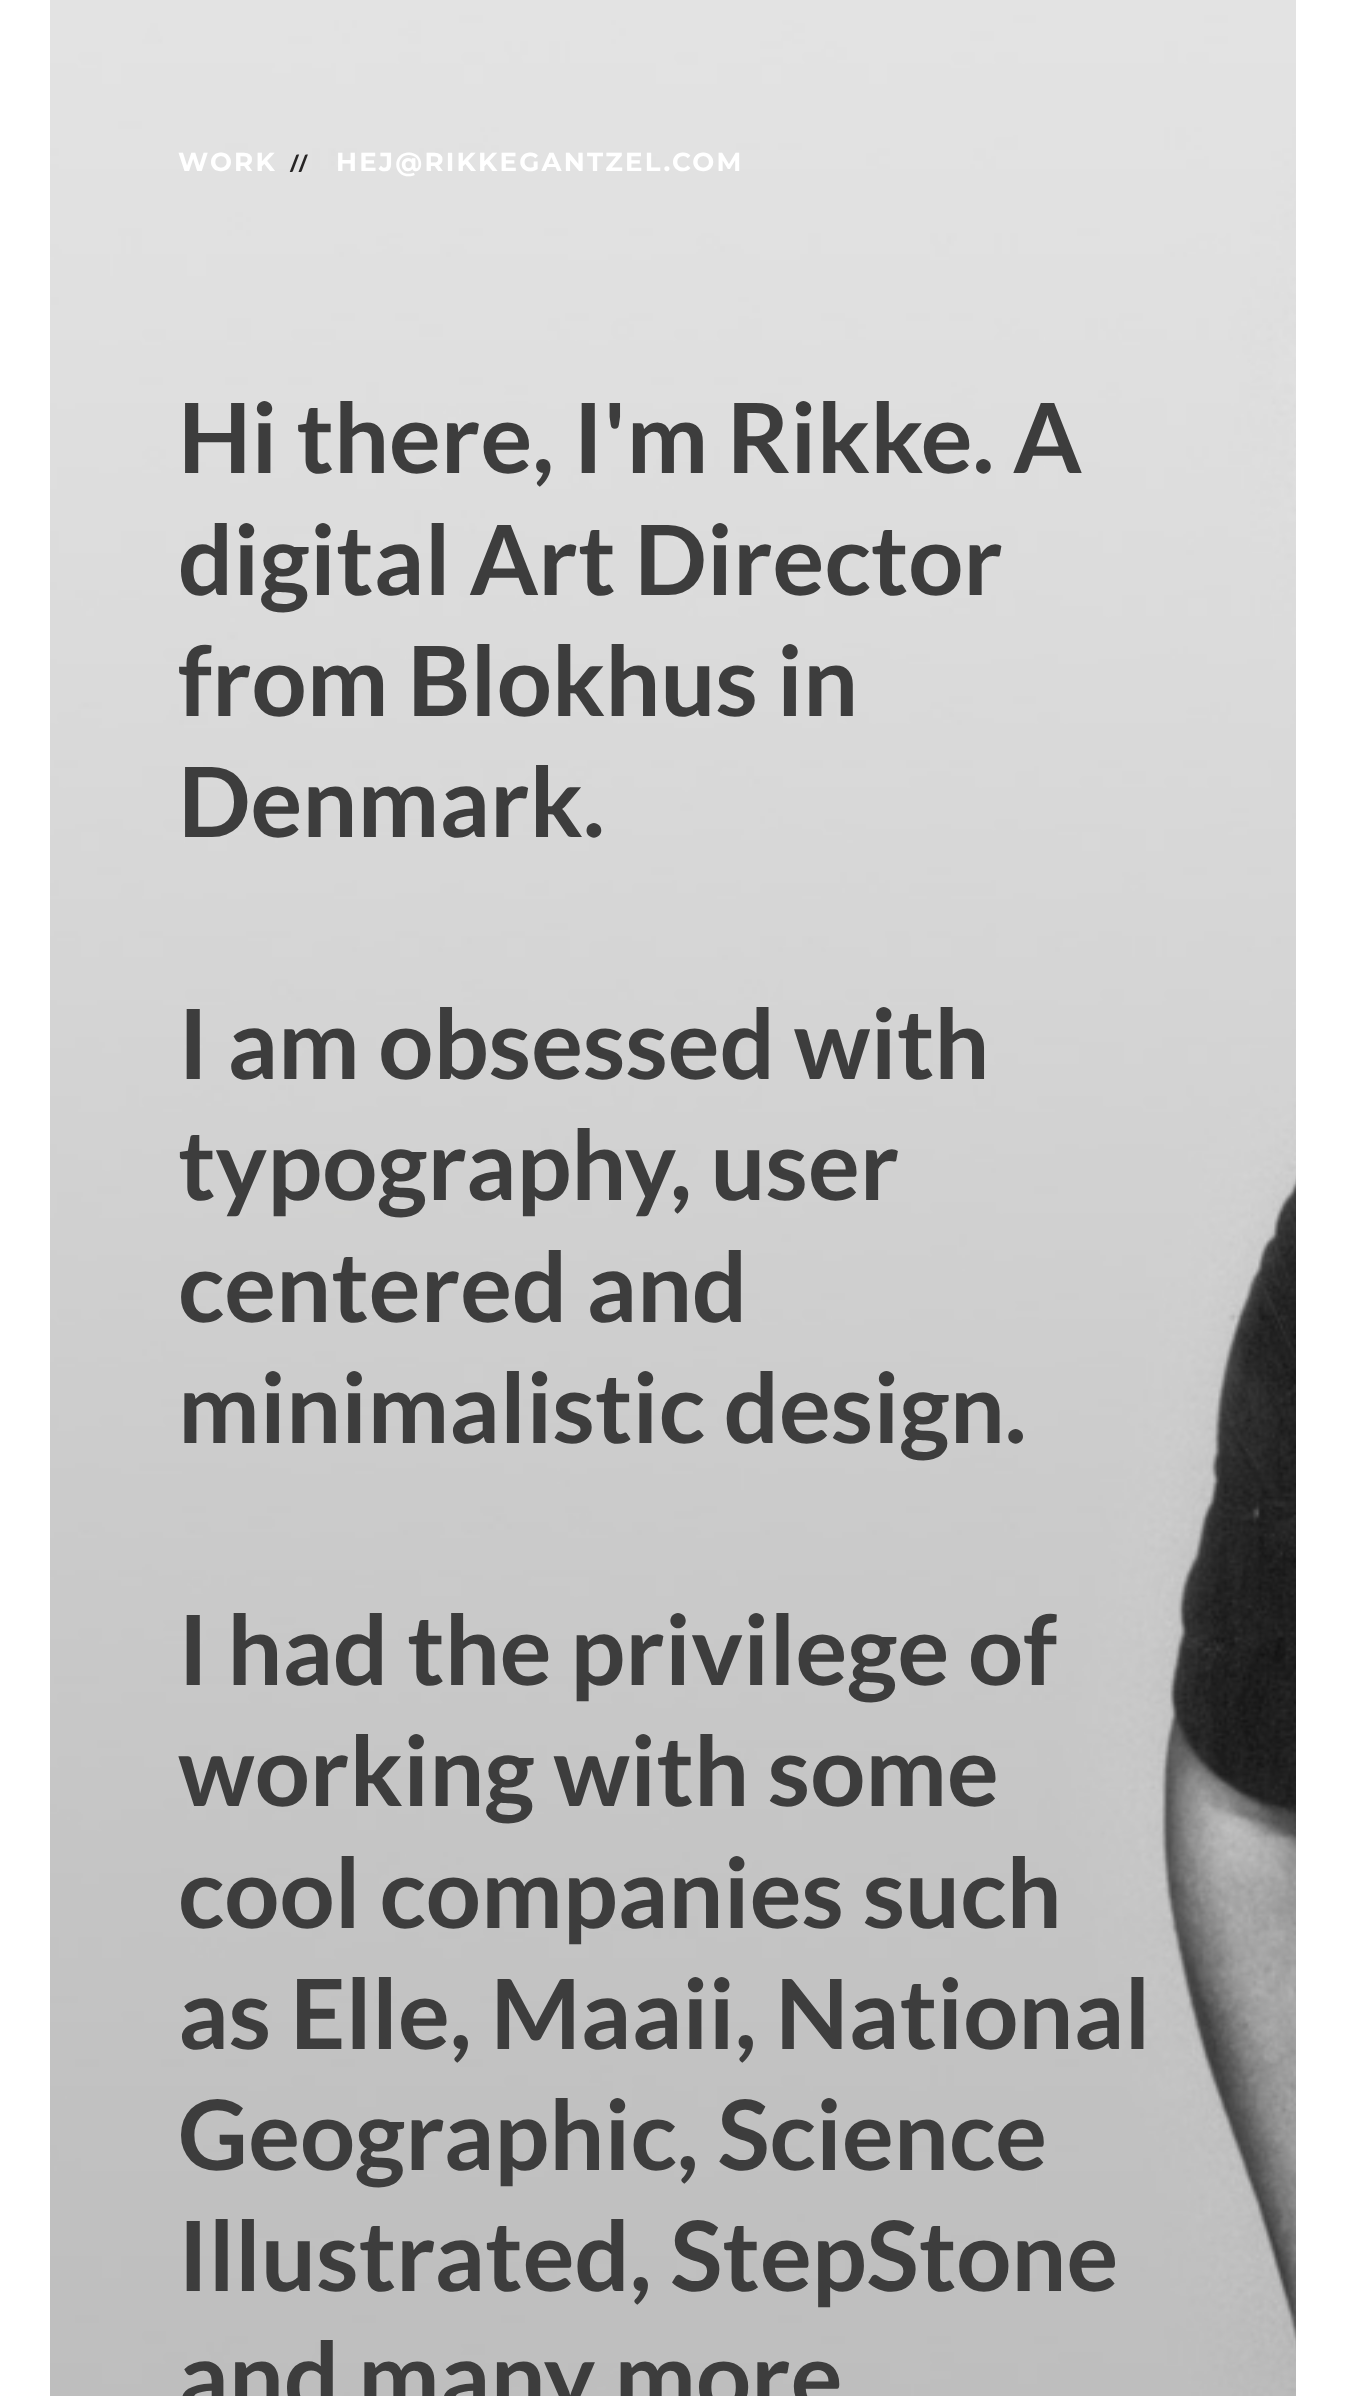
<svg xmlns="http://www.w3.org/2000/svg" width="1346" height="2396">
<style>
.a{font:bold 26px Montserrat;letter-spacing:2.25px;fill:#fff}
.b{font:900 22px Lato;letter-spacing:2.25px;fill:#272525}
.c{font:bold 97px Lato;fill:#3d3d3d}
</style>
<rect width="100%" height="100%" fill="#fff"/>
<image href="1.png" x="50" y="0" width="1246" height="2396"/>
<text class="a" x="178" y="171">WORK</text>
<text class="b" x="290" y="171">//</text>
<text class="a" x="336" y="171">HEJ@RIKKEGANTZEL.COM</text>
<text class="c" x="178" y="473">Hi there, I'm Rikke. A</text>
<text class="c" x="178" y="595">digital Art Director</text>
<text class="c" x="178" y="716">from Blokhus in</text>
<text class="c" x="178" y="837">Denmark.</text>
<text class="c" x="178" y="1079">I am obsessed with</text>
<text class="c" x="178" y="1200">typography, user</text>
<text class="c" x="178" y="1322">centered and</text>
<text class="c" x="178" y="1443">minimalistic design.</text>
<text class="c" x="178" y="1685">I had the privilege of</text>
<text class="c" x="178" y="1806">working with some</text>
<text class="c" x="178" y="1928">cool companies such</text>
<text class="c" x="178" y="2049">as Elle, Maaii, National</text>
<text class="c" x="178" y="2170">Geographic, Science</text>
<text class="c" x="178" y="2291">Illustrated, StepStone</text>
<text class="c" x="178" y="2412">and many more</text>
</svg>
